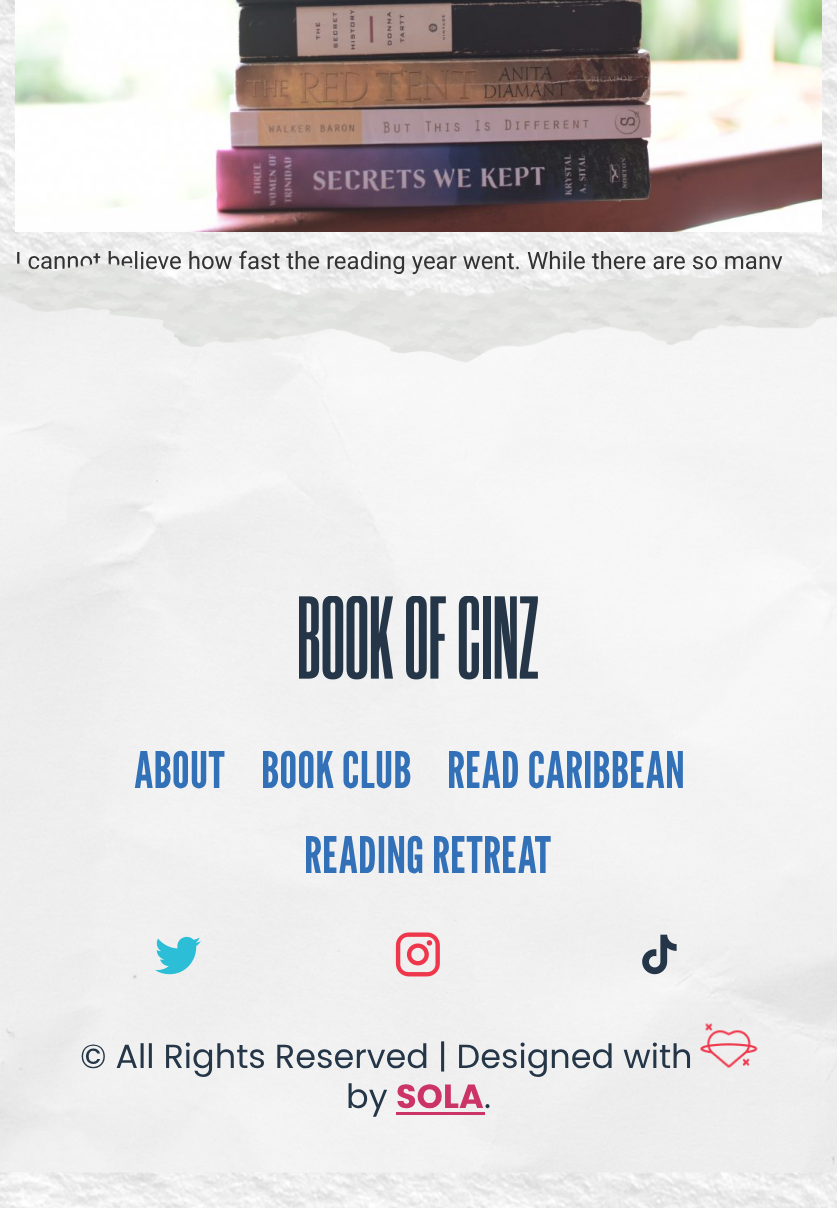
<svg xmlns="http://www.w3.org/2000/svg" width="837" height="1208">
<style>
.a{font:24px Roboto;fill:#333}
.b{font:50.25px League Gothic;fill:#3270b7}
.c{font:33.5px Poppins;fill:#243647}
.d{font:bold 33.5px Poppins;fill:#c36}
</style>
<rect width="100%" height="100%" fill="#fff"/>
<image href="1.png" x="0" y="0" width="837" height="1208"/>
<image href="2.png" x="15" y="0" width="807" height="232"/>
<text class="a" x="15" y="269">I cannot believe how fast the reading year went. While there are so many</text>
<image href="3.png" x="0" y="262" width="837" height="911"/>
<image href="4.png" x="299" y="596" width="239" height="84"/>
<text class="b" x="134" y="788">ABOUT</text>
<text class="b" x="261" y="788">BOOK CLUB</text>
<text class="b" x="447" y="788">READ CARIBBEAN</text>
<text class="b" x="304" y="873">READING RETREAT</text>
<image href="5.png" x="155" y="936" width="46" height="39"/>
<image href="6.png" x="395" y="932" width="45" height="45"/>
<image href="7.png" x="642" y="934" width="35" height="41"/>
<text class="c" x="80" y="1068">© All Rights Reserved | Designed with</text>
<image href="8.png" x="700" y="1023" width="58" height="45"/>
<text class="c" x="346" y="1108">by</text>
<text class="d" x="396" y="1108">SOLA</text>
<path fill="#c36" d="M396 1112h89v3H396z"/>
<text class="c" x="484" y="1108">.</text>
</svg>
